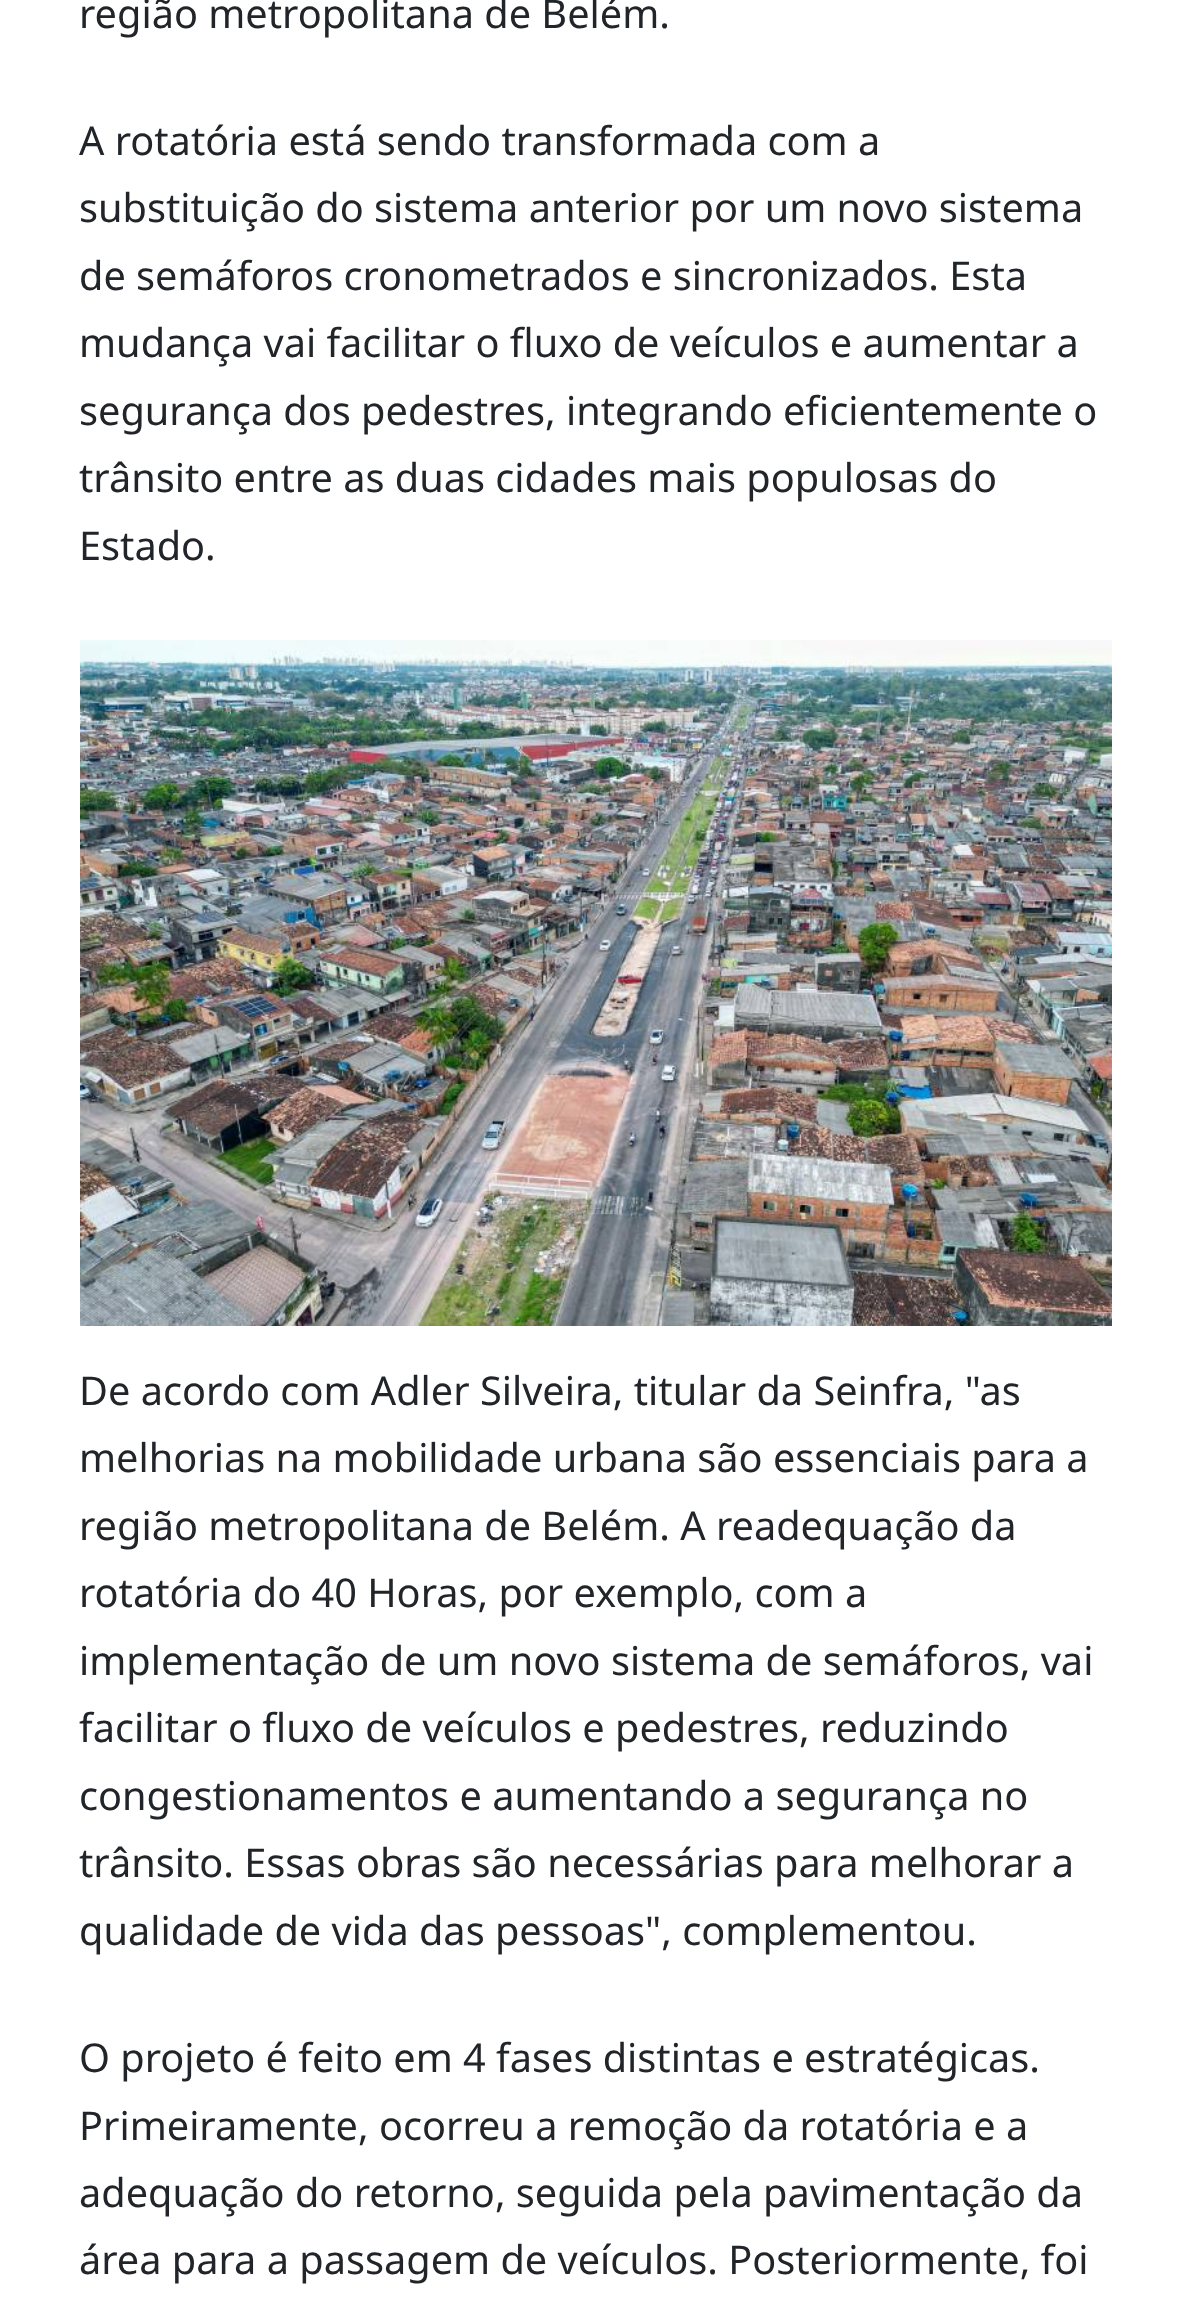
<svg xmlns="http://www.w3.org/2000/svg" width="1190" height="2308">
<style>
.a{font:39.7px Noto Sans;fill:#212529}
</style>
<rect width="100%" height="100%" fill="#fff"/>
<image href="1.png" x="80" y="640" width="1032" height="686"/>
<text class="a" x="79" y="28">região metropolitana de Belém.</text>
<text class="a" x="79" y="155">A rotatória está sendo transformada com a</text>
<text class="a" x="79" y="222">substituição do sistema anterior por um novo sistema</text>
<text class="a" x="79" y="290">de semáforos cronometrados e sincronizados. Esta</text>
<text class="a" x="79" y="357">mudança vai facilitar o fluxo de veículos e aumentar a</text>
<text class="a" x="79" y="425">segurança dos pedestres, integrando eficientemente o</text>
<text class="a" x="79" y="492">trânsito entre as duas cidades mais populosas do</text>
<text class="a" x="79" y="560">Estado.</text>
<text class="a" x="79" y="1405">De acordo com Adler Silveira, titular da Seinfra, "as</text>
<text class="a" x="79" y="1472">melhorias na mobilidade urbana são essenciais para a</text>
<text class="a" x="79" y="1540">região metropolitana de Belém. A readequação da</text>
<text class="a" x="79" y="1607">rotatória do 40 Horas, por exemplo, com a</text>
<text class="a" x="79" y="1675">implementação de um novo sistema de semáforos, vai</text>
<text class="a" x="79" y="1742">facilitar o fluxo de veículos e pedestres, reduzindo</text>
<text class="a" x="79" y="1810">congestionamentos e aumentando a segurança no</text>
<text class="a" x="79" y="1877">trânsito. Essas obras são necessárias para melhorar a</text>
<text class="a" x="79" y="1945">qualidade de vida das pessoas", complementou.</text>
<text class="a" x="79" y="2072">O projeto é feito em 4 fases distintas e estratégicas.</text>
<text class="a" x="79" y="2140">Primeiramente, ocorreu a remoção da rotatória e a</text>
<text class="a" x="79" y="2207">adequação do retorno, seguida pela pavimentação da</text>
<text class="a" x="79" y="2274">área para a passagem de veículos. Posteriormente, foi</text>
</svg>
